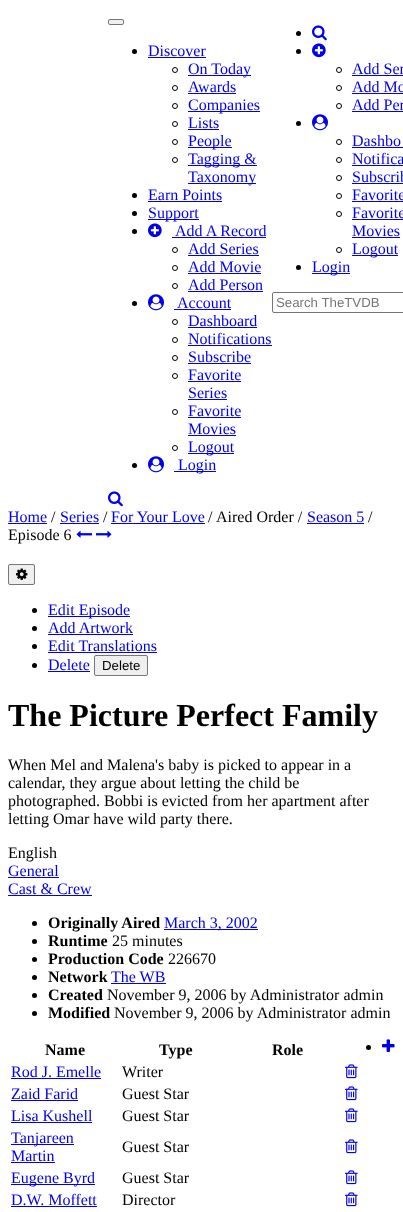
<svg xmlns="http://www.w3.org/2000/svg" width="403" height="1212">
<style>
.a{font:16px Liberation Serif;fill:#00e}
.b{font:13.25px Liberation Sans;fill:#757575}
.c{font:16px Liberation Serif;fill:#000}
.d{font:13.25px Liberation Sans;fill:#000}
.e{font:bold 32px Liberation Serif;fill:#000}
.f{font:bold 16px Liberation Serif;fill:#000}
</style>
<rect width="100%" height="100%" fill="#fff"/>
<rect fill="#efefef" stroke="#767676" x="108.5" y="19.5" width="15" height="5" rx="1.5"/>
<circle fill="#000" cx="134.5" cy="51.5" r="2.5"/>
<path fill="#00e" d="M148 57h58v1H148z"/>
<circle fill="none" stroke="#000" cx="175" cy="70" r="2.5"/>
<path fill="#00e" d="M188 75h63v1H188z"/>
<circle fill="none" stroke="#000" cx="175" cy="88" r="2.5"/>
<path fill="#00e" d="M188 93h48v1H188z"/>
<circle fill="none" stroke="#000" cx="175" cy="106" r="2.5"/>
<path fill="#00e" d="M188 111h72v1H188z"/>
<circle fill="none" stroke="#000" cx="175" cy="124" r="2.5"/>
<path fill="#00e" d="M188 129h31v1H188z"/>
<circle fill="none" stroke="#000" cx="175" cy="142" r="2.5"/>
<path fill="#00e" d="M188 147h44v1H188z"/>
<circle fill="none" stroke="#000" cx="175" cy="160" r="2.5"/>
<path fill="#00e" d="M188 165h69v1H188z"/>
<path fill="#00e" d="M188 183h68v1H188z"/>
<circle fill="#000" cx="134.5" cy="195.5" r="2.5"/>
<path fill="#00e" d="M148 201h74v1H148z"/>
<circle fill="#000" cx="134.5" cy="213.5" r="2.5"/>
<path fill="#00e" d="M148 219h51v1H148z"/>
<circle fill="#000" cx="134.5" cy="231.5" r="2.5"/>
<image href="1.png" x="148" y="223" width="14" height="15"/>
<path fill="#00e" d="M172 237h94v1H172z"/>
<circle fill="none" stroke="#000" cx="175" cy="250" r="2.5"/>
<path fill="#00e" d="M188 255h71v1H188z"/>
<circle fill="none" stroke="#000" cx="175" cy="268" r="2.5"/>
<path fill="#00e" d="M188 273h73v1H188z"/>
<circle fill="none" stroke="#000" cx="175" cy="286" r="2.5"/>
<path fill="#00e" d="M188 291h75v1H188z"/>
<circle fill="#000" cx="134.5" cy="303.5" r="2.5"/>
<image href="2.png" x="148" y="294" width="16" height="17"/>
<path fill="#00e" d="M174 309h57v1H174z"/>
<circle fill="none" stroke="#000" cx="175" cy="322" r="2.5"/>
<path fill="#00e" d="M188 327h69v1H188z"/>
<circle fill="none" stroke="#000" cx="175" cy="340" r="2.5"/>
<path fill="#00e" d="M188 345h84v1H188z"/>
<circle fill="none" stroke="#000" cx="175" cy="358" r="2.5"/>
<path fill="#00e" d="M188 363h63v1H188z"/>
<circle fill="none" stroke="#000" cx="175" cy="376" r="2.5"/>
<path fill="#00e" d="M188 381h53v1H188z"/>
<path fill="#00e" d="M188 399h39v1H188z"/>
<circle fill="none" stroke="#000" cx="175" cy="412" r="2.5"/>
<path fill="#00e" d="M188 417h53v1H188z"/>
<path fill="#00e" d="M188 435h48v1H188z"/>
<circle fill="none" stroke="#000" cx="175" cy="448" r="2.5"/>
<path fill="#00e" d="M188 453h46v1H188z"/>
<circle fill="#000" cx="134.5" cy="465.5" r="2.5"/>
<image href="2.png" x="148" y="456" width="16" height="17"/>
<path fill="#00e" d="M174 471h42v1H174z"/>
<image href="3.png" x="108" y="491" width="15" height="16"/>
<circle fill="#000" cx="298.5" cy="33.5" r="2.5"/>
<image href="3.png" x="312" y="25" width="15" height="16"/>
<circle fill="#000" cx="298.5" cy="51.5" r="2.5"/>
<image href="1.png" x="312" y="43" width="14" height="15"/>
<circle fill="none" stroke="#000" cx="339" cy="70" r="2.5"/>
<path fill="#00e" d="M352 75h51v1H352z"/>
<circle fill="none" stroke="#000" cx="339" cy="88" r="2.5"/>
<path fill="#00e" d="M352 93h51v1H352z"/>
<circle fill="none" stroke="#000" cx="339" cy="106" r="2.5"/>
<path fill="#00e" d="M352 111h51v1H352z"/>
<circle fill="#000" cx="298.5" cy="123.5" r="2.5"/>
<image href="2.png" x="312" y="114" width="16" height="17"/>
<circle fill="none" stroke="#000" cx="339" cy="142" r="2.5"/>
<path fill="#00e" d="M352 147h51v1H352z"/>
<circle fill="none" stroke="#000" cx="339" cy="160" r="2.5"/>
<path fill="#00e" d="M352 165h51v1H352z"/>
<circle fill="none" stroke="#000" cx="339" cy="178" r="2.5"/>
<path fill="#00e" d="M352 183h51v1H352z"/>
<circle fill="none" stroke="#000" cx="339" cy="196" r="2.5"/>
<path fill="#00e" d="M352 201h51v1H352z"/>
<circle fill="none" stroke="#000" cx="339" cy="214" r="2.5"/>
<path fill="#00e" d="M352 219h51v1H352z"/>
<path fill="#00e" d="M352 237h48v1H352z"/>
<circle fill="none" stroke="#000" cx="339" cy="250" r="2.5"/>
<path fill="#00e" d="M352 255h46v1H352z"/>
<circle fill="#000" cx="298.5" cy="267.5" r="2.5"/>
<path fill="#00e" d="M312 273h38v1H312z"/>
<rect fill="none" stroke="#767676" x="272.5" y="292.5" width="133" height="20" rx="1.5"/>
<path fill="#00e" d="M8 523h39v1H8z"/>
<path fill="#00e" d="M60 523h39v1H60z"/>
<path fill="#00e" d="M111 523h94v1H111z"/>
<path fill="#00e" d="M307 523h57v1H307z"/>
<image href="4.png" x="76" y="530" width="16" height="8"/>
<image href="5.png" x="96" y="530" width="16" height="8"/>
<rect fill="#efefef" stroke="#767676" x="8.5" y="564.5" width="26" height="20" rx="1.5"/>
<image href="6.png" x="16" y="568" width="12" height="12"/>
<circle fill="#000" cx="34.5" cy="610.5" r="2.5"/>
<path fill="#00e" d="M48 616h82v1H48z"/>
<circle fill="#000" cx="34.5" cy="628.5" r="2.5"/>
<path fill="#00e" d="M48 634h85v1H48z"/>
<circle fill="#000" cx="34.5" cy="646.5" r="2.5"/>
<path fill="#00e" d="M48 652h109v1H48z"/>
<circle fill="#000" cx="34.5" cy="665.5" r="2.5"/>
<path fill="#00e" d="M48 671h42v1H48z"/>
<rect fill="#efefef" stroke="#767676" x="94.5" y="655.5" width="53" height="20" rx="1.5"/>
<path fill="#00e" d="M8 877h51v1H8z"/>
<path fill="#00e" d="M8 895h84v1H8z"/>
<circle fill="#000" cx="34.5" cy="923.5" r="2.5"/>
<path fill="#00e" d="M164 929h94v1H164z"/>
<circle fill="#000" cx="34.5" cy="941.5" r="2.5"/>
<circle fill="#000" cx="34.5" cy="959.5" r="2.5"/>
<circle fill="#000" cx="34.5" cy="977.5" r="2.5"/>
<path fill="#00e" d="M111 983h55v1H111z"/>
<circle fill="#000" cx="34.5" cy="995.5" r="2.5"/>
<circle fill="#000" cx="34.5" cy="1013.5" r="2.5"/>
<path fill="#00e" d="M11 1078h90v1H11z"/>
<image href="7.png" x="345" y="1064" width="13" height="15"/>
<path fill="#00e" d="M11 1100h67v1H11z"/>
<image href="7.png" x="345" y="1086" width="13" height="15"/>
<path fill="#00e" d="M11 1122h81v1H11z"/>
<image href="7.png" x="345" y="1108" width="13" height="15"/>
<path fill="#00e" d="M11 1144h63v1H11z"/>
<path fill="#00e" d="M11 1162h44v1H11z"/>
<image href="7.png" x="345" y="1139" width="13" height="15"/>
<path fill="#00e" d="M11 1184h84v1H11z"/>
<image href="7.png" x="345" y="1170" width="13" height="15"/>
<path fill="#00e" d="M11 1206h86v1H11z"/>
<image href="7.png" x="345" y="1192" width="13" height="15"/>
<circle fill="#000" cx="368.5" cy="1047.5" r="2.5"/>
<image href="8.png" x="382" y="1039" width="13" height="13"/>
<text class="a" x="148" y="56">Discover</text>
<text class="a" x="188" y="74">On Today</text>
<text class="a" x="188" y="92">Awards</text>
<text class="a" x="188" y="110">Companies</text>
<text class="a" x="188" y="128">Lists</text>
<text class="a" x="188" y="146">People</text>
<text class="a" x="188" y="164">Tagging &amp;</text>
<text class="a" x="188" y="182">Taxonomy</text>
<text class="a" x="148" y="200">Earn Points</text>
<text class="a" x="148" y="218">Support</text>
<text class="a" x="175" y="236">Add A Record</text>
<text class="a" x="188" y="254">Add Series</text>
<text class="a" x="188" y="272">Add Movie</text>
<text class="a" x="188" y="290">Add Person</text>
<text class="a" x="177" y="308">Account</text>
<text class="a" x="188" y="326">Dashboard</text>
<text class="a" x="188" y="344">Notifications</text>
<text class="a" x="188" y="362">Subscribe</text>
<text class="a" x="188" y="380">Favorite</text>
<text class="a" x="188" y="398">Series</text>
<text class="a" x="188" y="416">Favorite</text>
<text class="a" x="188" y="434">Movies</text>
<text class="a" x="188" y="452">Logout</text>
<text class="a" x="178" y="470">Login</text>
<text class="a" x="352" y="74">Add Ser</text>
<text class="a" x="352" y="92">Add Mo</text>
<text class="a" x="352" y="110">Add Per</text>
<text class="a" x="352" y="146">Dashbo</text>
<text class="a" x="352" y="164">Notifica</text>
<text class="a" x="352" y="182">Subscrib</text>
<text class="a" x="352" y="200">Favorite</text>
<text class="a" x="352" y="218">Favorite</text>
<text class="a" x="352" y="236">Movies</text>
<text class="a" x="352" y="254">Logout</text>
<text class="a" x="312" y="272">Login</text>
<text class="b" x="276" y="307">Search TheTVDB</text>
<text class="a" x="8" y="522">Home</text>
<text class="c" x="51" y="522">/</text>
<text class="a" x="60" y="522">Series</text>
<text class="c" x="103" y="522">/</text>
<text class="a" x="111" y="522">For Your Love</text>
<text class="c" x="208" y="522">/</text>
<text class="c" x="216" y="522">Aired Order /</text>
<text class="a" x="307" y="522">Season 5</text>
<text class="c" x="368" y="522">/</text>
<text class="c" x="8" y="540">Episode 6</text>
<text class="a" x="48" y="615">Edit Episode</text>
<text class="a" x="48" y="633">Add Artwork</text>
<text class="a" x="48" y="651">Edit Translations</text>
<text class="a" x="48" y="670">Delete</text>
<text class="d" x="102" y="670">Delete</text>
<text class="e" x="8" y="726">The Picture Perfect Family</text>
<text class="c" x="8" y="770">When Mel and Malena's baby is picked to appear in a</text>
<text class="c" x="8" y="788">calendar, they argue about letting the child be</text>
<text class="c" x="8" y="806">photographed. Bobbi is evicted from her apartment after</text>
<text class="c" x="8" y="824">letting Omar have wild party there.</text>
<text class="c" x="8" y="858">English</text>
<text class="a" x="8" y="876">General</text>
<text class="a" x="8" y="894">Cast &amp; Crew</text>
<text class="f" x="48" y="928">Originally Aired</text>
<text class="a" x="164" y="928">March 3, 2002</text>
<text class="f" x="48" y="946">Runtime</text>
<text class="c" x="112" y="946">25 minutes</text>
<text class="f" x="48" y="964">Production Code</text>
<text class="c" x="168" y="964">226670</text>
<text class="f" x="48" y="982">Network</text>
<text class="a" x="111" y="982">The WB</text>
<text class="f" x="48" y="1000">Created</text>
<text class="c" x="107" y="1000">November 9, 2006 by Administrator admin</text>
<text class="f" x="48" y="1018">Modified</text>
<text class="c" x="114" y="1018">November 9, 2006 by Administrator admin</text>
<text class="f" x="45" y="1055">Name</text>
<text class="f" x="159" y="1055">Type</text>
<text class="f" x="272" y="1055">Role</text>
<text class="a" x="11" y="1077">Rod J. Emelle</text>
<text class="c" x="122" y="1077">Writer</text>
<text class="a" x="11" y="1099">Zaid Farid</text>
<text class="c" x="122" y="1099">Guest Star</text>
<text class="a" x="11" y="1121">Lisa Kushell</text>
<text class="c" x="122" y="1121">Guest Star</text>
<text class="a" x="11" y="1143">Tanjareen</text>
<text class="a" x="11" y="1161">Martin</text>
<text class="c" x="122" y="1152">Guest Star</text>
<text class="a" x="11" y="1183">Eugene Byrd</text>
<text class="c" x="122" y="1183">Guest Star</text>
<text class="a" x="11" y="1205">D.W. Moffett</text>
<text class="c" x="122" y="1205">Director</text>
</svg>
